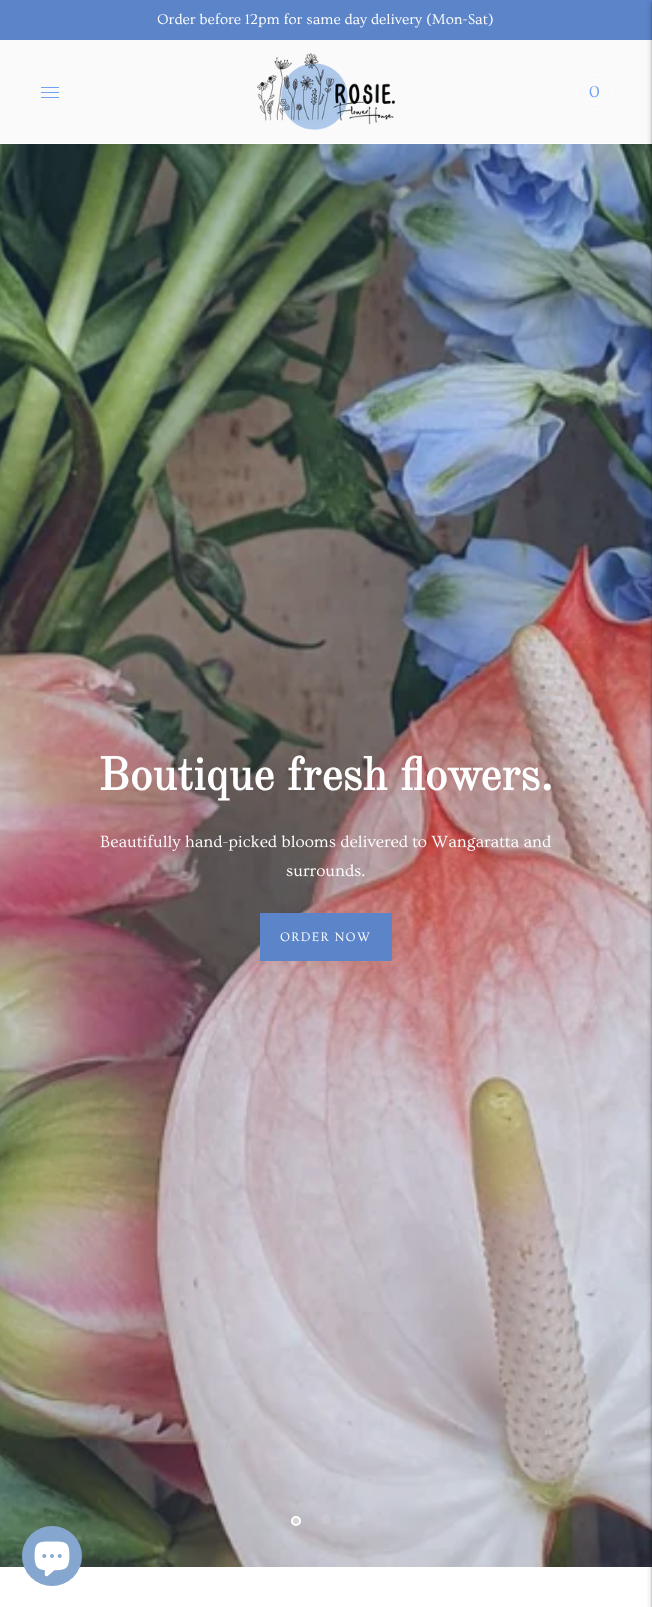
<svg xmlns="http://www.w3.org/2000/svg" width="652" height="1607">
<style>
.a{font:15px Ovo;fill:#fefefe}
.b{font:17px Ovo;fill:#70a1f2}
.c{font:bold 46px Old Standard TT;fill:#fefefe}
.d{font:17px Ovo;fill:#fefefe}
.e{font:13px Ovo;letter-spacing:1.25px;fill:#fefefe}
</style>
<rect width="100%" height="100%" fill="#fff"/>
<path fill="#5c85c9" d="M0 0h652v40H0z"/>
<path fill="#fafafa" d="M0 40h652v103H0z"/>
<image href="2.png" x="0" y="144" width="652" height="1423"/>
<path fill="#0000001a" filter="blur(3px)" d="M652 4h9v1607H652z"/>
<path fill="#00000026" filter="blur(1px)" d="M652 2h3v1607H652z"/>
<path fill="none" stroke="#70a1f2" d="M41 87.5h18m-18 5h18m-18 5h18"/>
<image href="1.png" x="257" y="53" width="138" height="77"/>
<circle fill="none" stroke="#fefefe" cx="594" cy="92" r="17.5"/>
<path fill="#0000001a" filter="blur(3px)" d="M652 4h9v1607H652z"/>
<path fill="#00000026" filter="blur(1px)" d="M652 2h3v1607H652z"/>
<path fill="#5c85c9" d="M260 913h132v48H260z"/>
<circle fill="#ffffff66" stroke="#fff" stroke-width="2" cx="296" cy="1521" r="4"/>
<circle fill="#ffffff1a" cx="326" cy="1519" r="5"/>
<circle fill="#ffffff1a" cx="356" cy="1519" r="5"/>
<circle fill="#84a6cf" cx="52" cy="1556" r="30"/>
<image href="3.png" x="34" y="1541" width="36" height="36"/>
<text class="a" x="157" y="24">Order before 12pm for same day delivery (Mon-Sat)</text>
<text class="b" x="589" y="97">0</text>
<text class="c" x="98" y="790">Boutique fresh flowers.</text>
<text class="d" x="100" y="847">Beautifully hand-picked blooms delivered to Wangaratta and</text>
<text class="d" x="286" y="876">surrounds.</text>
<text class="e" x="280" y="941">ORDER NOW</text>
</svg>
